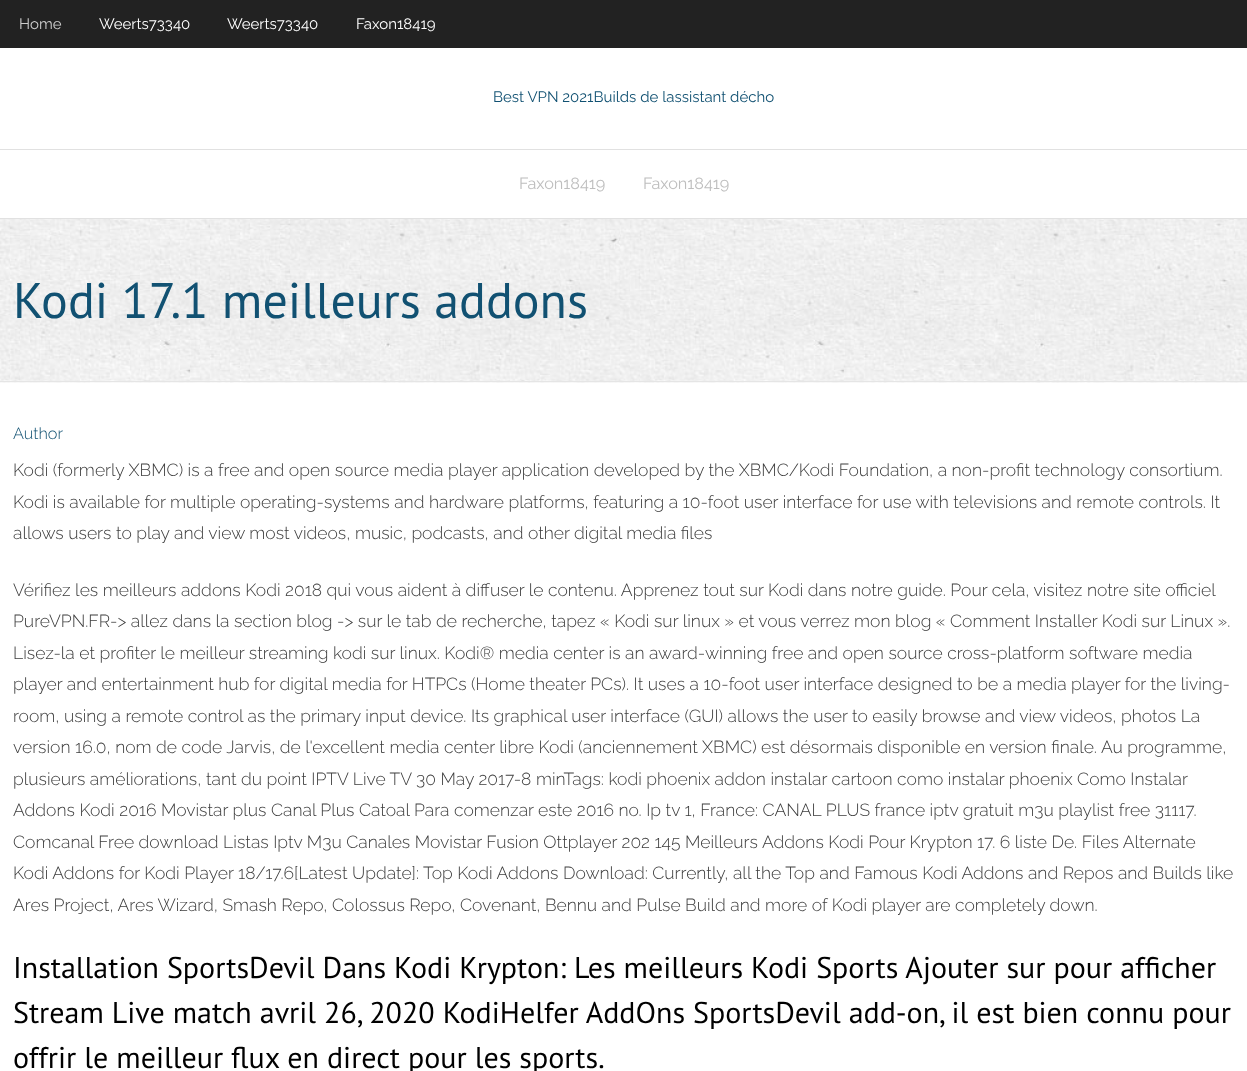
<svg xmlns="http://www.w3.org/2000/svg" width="1247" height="1071">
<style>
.a{font:15px Raleway;fill:#ccc}
.b{font:15px Raleway;fill:#fff}
.c{font:15px Raleway;fill:#115172}
.d{font:16.25px Raleway;fill:#bebebe}
.e{font:50px PT Sans;fill:#115172}
.f{font:300 16.25px Raleway;fill:#115172}
.g{font:300 17.5px Raleway;fill:#3d3d3d}
.h{font:30px PT Sans;fill:#000}
</style>
<rect width="100%" height="100%" fill="#fff"/>
<path fill="#222" d="M0 0h1247v48H0z"/>
<path fill="#e1e1e1" d="M0 149h1247v1H0z"/>
<path fill="#e1e1e1" d="M0 218h1247v1H0z"/>
<image href="1.png" x="0" y="219" width="1247" height="164"/>
<path fill="#e5e5e5" d="M0 381h1247v1H0z"/>
<text class="a" x="19" y="29">Home</text>
<text class="b" x="99" y="29">Weerts73340</text>
<text class="b" x="227" y="29">Weerts73340</text>
<text class="b" x="356" y="29">Faxon18419</text>
<text class="c" x="493" y="102">Best VPN 2021Builds de lassistant décho</text>
<text class="d" x="519" y="189">Faxon18419</text>
<text class="d" x="643" y="189">Faxon18419</text>
<text class="e" x="13" y="318">Kodi 17.1 meilleurs addons</text>
<text class="f" x="13" y="439">Author</text>
<text class="g" x="13" y="476">Kodi (formerly XBMC) is a free and open source media player application developed by the XBMC/Kodi Foundation, a non-profit technology consortium.</text>
<text class="g" x="13" y="508">Kodi is available for multiple operating-systems and hardware platforms, featuring a 10-foot user interface for use with televisions and remote controls. It</text>
<text class="g" x="13" y="539">allows users to play and view most videos, music, podcasts, and other digital media files</text>
<text class="g" x="13" y="596">Vérifiez les meilleurs addons Kodi 2018 qui vous aident à diffuser le contenu. Apprenez tout sur Kodi dans notre guide. Pour cela, visitez notre site officiel</text>
<text class="g" x="13" y="627">PureVPN.FR-&gt; allez dans la section blog -&gt; sur le tab de recherche, tapez « Kodi sur linux » et vous verrez mon blog « Comment Installer Kodi sur Linux ».</text>
<text class="g" x="13" y="659">Lisez-la et profiter le meilleur streaming kodi sur linux. Kodi® media center is an award-winning free and open source cross-platform software media</text>
<text class="g" x="13" y="690">player and entertainment hub for digital media for HTPCs (Home theater PCs). It uses a 10-foot user interface designed to be a media player for the living-</text>
<text class="g" x="13" y="722">room, using a remote control as the primary input device. Its graphical user interface (GUI) allows the user to easily browse and view videos, photos La</text>
<text class="g" x="13" y="753">version 16.0, nom de code Jarvis, de l'excellent media center libre Kodi (anciennement XBMC) est désormais disponible en version finale. Au programme,</text>
<text class="g" x="13" y="785">plusieurs améliorations, tant du point IPTV Live TV 30 May 2017-8 minTags: kodi phoenix addon instalar cartoon como instalar phoenix Como Instalar</text>
<text class="g" x="13" y="816">Addons Kodi 2016 Movistar plus Canal Plus Catoal Para comenzar este 2016 no. Ip tv 1, France: CANAL PLUS france iptv gratuit m3u playlist free 31117.</text>
<text class="g" x="13" y="848">Comcanal Free download Listas Iptv M3u Canales Movistar Fusion Ottplayer 202 145 Meilleurs Addons Kodi Pour Krypton 17. 6 liste De. Files Alternate</text>
<text class="g" x="13" y="879">Kodi Addons for Kodi Player 18/17.6[Latest Update]: Top Kodi Addons Download: Currently, all the Top and Famous Kodi Addons and Repos and Builds like</text>
<text class="g" x="13" y="911">Ares Project, Ares Wizard, Smash Repo, Colossus Repo, Covenant, Bennu and Pulse Build and more of Kodi player are completely down.</text>
<text class="h" x="13" y="978">Installation SportsDevil Dans Kodi Krypton: Les meilleurs Kodi Sports Ajouter sur pour afficher</text>
<text class="h" x="13" y="1023">Stream Live match avril 26, 2020 KodiHelfer AddOns SportsDevil add-on, il est bien connu pour</text>
<text class="h" x="13" y="1068">offrir le meilleur flux en direct pour les sports.</text>
</svg>
